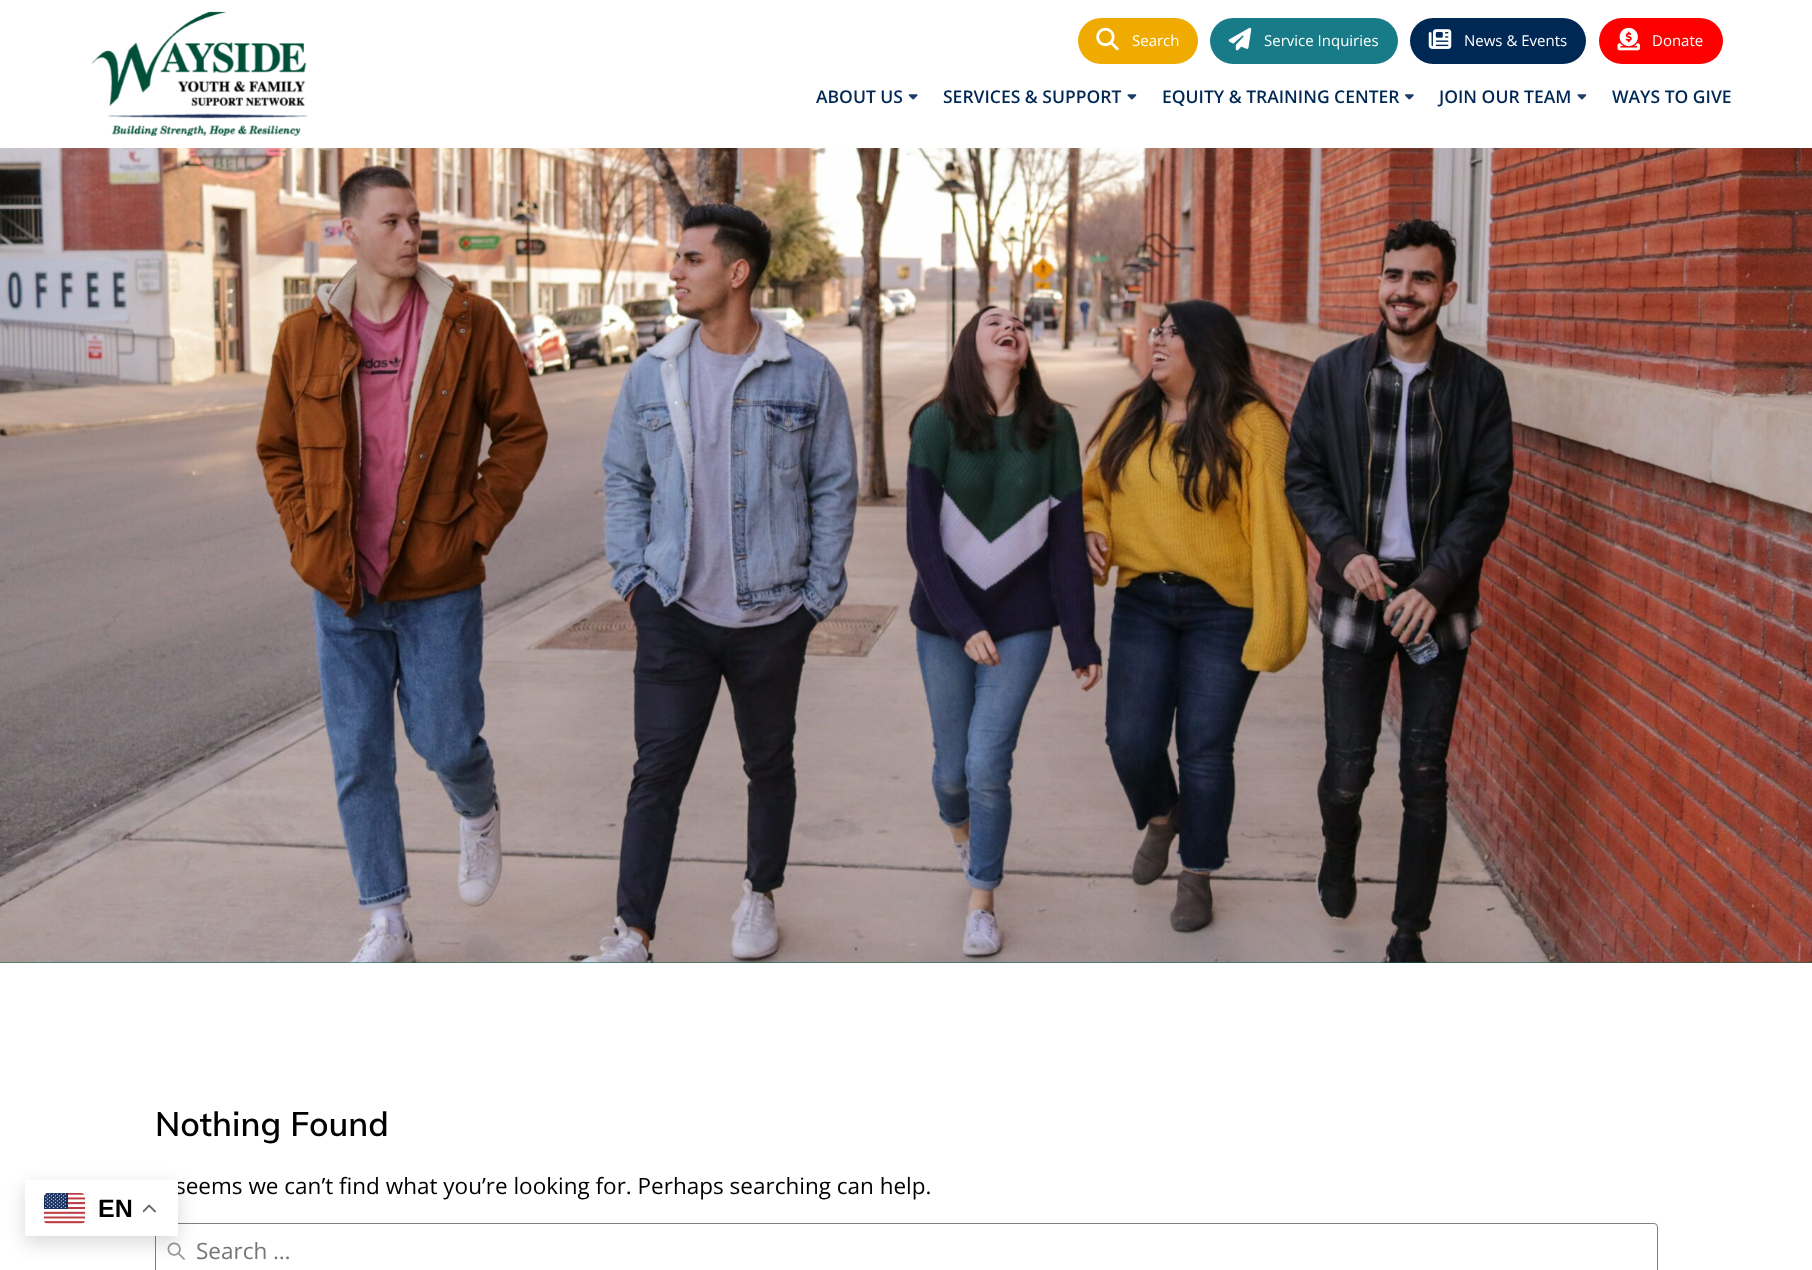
<svg xmlns="http://www.w3.org/2000/svg" width="1812" height="1270">
<style>
.a{font:15px Open Sans;fill:#fff}
.b{font:600 17.5px Open Sans;fill:#002855}
.c{font:600 33.75px Muli;fill:#000}
.d{font:22.5px Open Sans;fill:#000}
.e{font:bold 25px Liberation Sans;fill:#000}
.f{font:22.5px Open Sans;fill:#757575}
</style>
<rect width="100%" height="100%" fill="#00664f"/>
<path fill="#fff" d="M0 0h1812v148H0z"/>
<image href="1.png" x="91" y="11" width="217" height="125"/>
<rect fill="#f0ab00" x="1078" y="18" width="120" height="46" rx="23"/>
<image href="2.png" x="1096" y="27" width="23" height="24"/>
<rect fill="#187b88" x="1210" y="18" width="188" height="46" rx="23"/>
<image href="3.png" x="1228" y="27" width="24" height="24"/>
<rect fill="#002855" x="1410" y="18" width="176" height="46" rx="23"/>
<image href="4.png" x="1428" y="29" width="24" height="20"/>
<rect fill="#f00" x="1599" y="18" width="124" height="46" rx="23"/>
<image href="5.png" x="1617" y="27" width="23" height="24"/>
<image href="6.png" x="908" y="94" width="10" height="6"/>
<image href="7.png" x="1127" y="94" width="10" height="6"/>
<image href="8.png" x="1405" y="94" width="9" height="6"/>
<image href="7.png" x="1577" y="94" width="10" height="6"/>
<path fill="#fff" d="M0 963h1812v307H0z"/>
<image href="12.png" x="167" y="1242" width="18" height="18"/>
<rect fill="none" stroke="#808080" x="155.5" y="1223.5" width="1502" height="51" rx="3.5"/>
<rect fill="#00000026" filter="blur(9.5px)" x="25" y="1186" width="153" height="57" rx="2.5"/>
<image href="11.png" x="0" y="148" width="1812" height="815"/>
<text class="a" x="1132" y="46">Search</text>
<text class="a" x="1264" y="46">Service Inquiries</text>
<text class="a" x="1464" y="46">News &amp; Events</text>
<text class="a" x="1652" y="46">Donate</text>
<text class="b" x="816" y="103">ABOUT US</text>
<text class="b" x="943" y="103">SERVICES &amp; SUPPORT</text>
<text class="b" x="1162" y="103">EQUITY &amp; TRAINING CENTER</text>
<text class="b" x="1439" y="103">JOIN OUR TEAM</text>
<text class="b" x="1612" y="103">WAYS TO GIVE</text>
<text class="c" x="155" y="1136">Nothing Found</text>
<text class="d" x="175" y="1194">seems we can’t find what you’re looking for. Perhaps searching can help.</text>
<rect fill="#fff" x="25" y="1180" width="153" height="56" rx="2.5"/>
<image href="10.png" x="143" y="1204" width="13" height="9"/>
<text class="e" x="98" y="1217">EN</text>
<image href="9.png" x="44" y="1193" width="41" height="31"/>
<text class="f" x="196" y="1259">Search …</text>
</svg>
